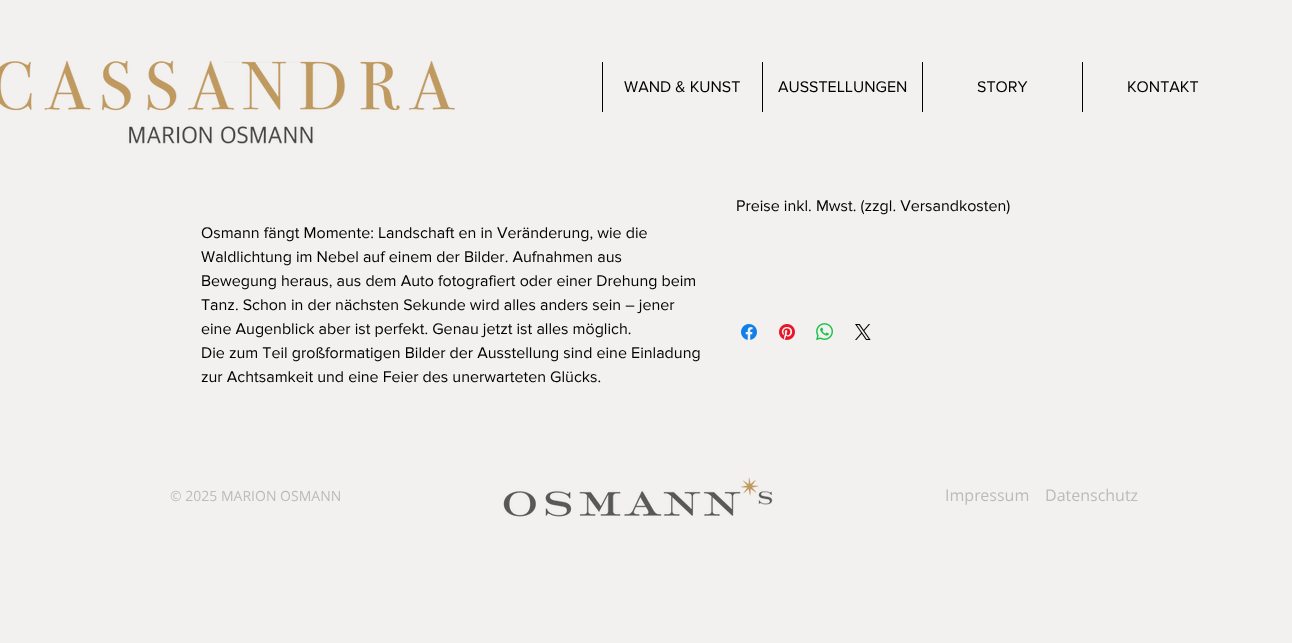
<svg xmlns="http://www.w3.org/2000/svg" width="1292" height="643">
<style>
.a{font:16px 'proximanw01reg';fill:#000}
.b{font:14px Open Sans;fill:#bdbbb9}
.c{font:16px Open Sans;fill:#bdbbb9}
</style>
<rect width="100%" height="100%" fill="#f2f1f0"/>
<image href="1.png" x="0" y="60" width="455" height="84"/>
<path fill="#000" d="M602 62h1v50H602z"/>
<path fill="#000" d="M762 62h1v50H762z"/>
<path fill="#000" d="M922 62h1v50H922z"/>
<path fill="#000" d="M1082 62h1v50H1082z"/>
<image href="2.png" x="741" y="324" width="16" height="16"/>
<image href="3.png" x="779" y="324" width="16" height="16"/>
<image href="4.png" x="816" y="323" width="17" height="17"/>
<image href="5.png" x="855" y="324" width="16" height="16"/>
<image href="6.png" x="503" y="477" width="270" height="40"/>
<text class="a" x="624" y="92">WAND &amp; KUNST</text>
<text class="a" x="778" y="92">AUSSTELLUNGEN</text>
<text class="a" x="977" y="92">STORY</text>
<text class="a" x="1127" y="92">KONTAKT</text>
<text class="a" x="736" y="211">Preise inkl. Mwst. (zzgl. Versandkosten)</text>
<text class="a" x="201" y="238">Osmann fängt Momente: Landschaft en in Veränderung, wie die</text>
<text class="a" x="201" y="262">Waldlichtung im Nebel auf einem der Bilder. Aufnahmen aus</text>
<text class="a" x="201" y="286">Bewegung heraus, aus dem Auto fotografiert oder einer Drehung beim</text>
<text class="a" x="201" y="310">Tanz. Schon in der nächsten Sekunde wird alles anders sein – jener</text>
<text class="a" x="201" y="334">eine Augenblick aber ist perfekt. Genau jetzt ist alles möglich.</text>
<text class="a" x="201" y="358">Die zum Teil großformatigen Bilder der Ausstellung sind eine Einladung</text>
<text class="a" x="201" y="382">zur Achtsamkeit und eine Feier des unerwarteten Glücks.</text>
<text class="b" x="170" y="501">© 2025 MARION OSMANN</text>
<text class="c" x="945" y="501">Impressum</text>
<text class="c" x="1045" y="501">Datenschutz</text>
</svg>
